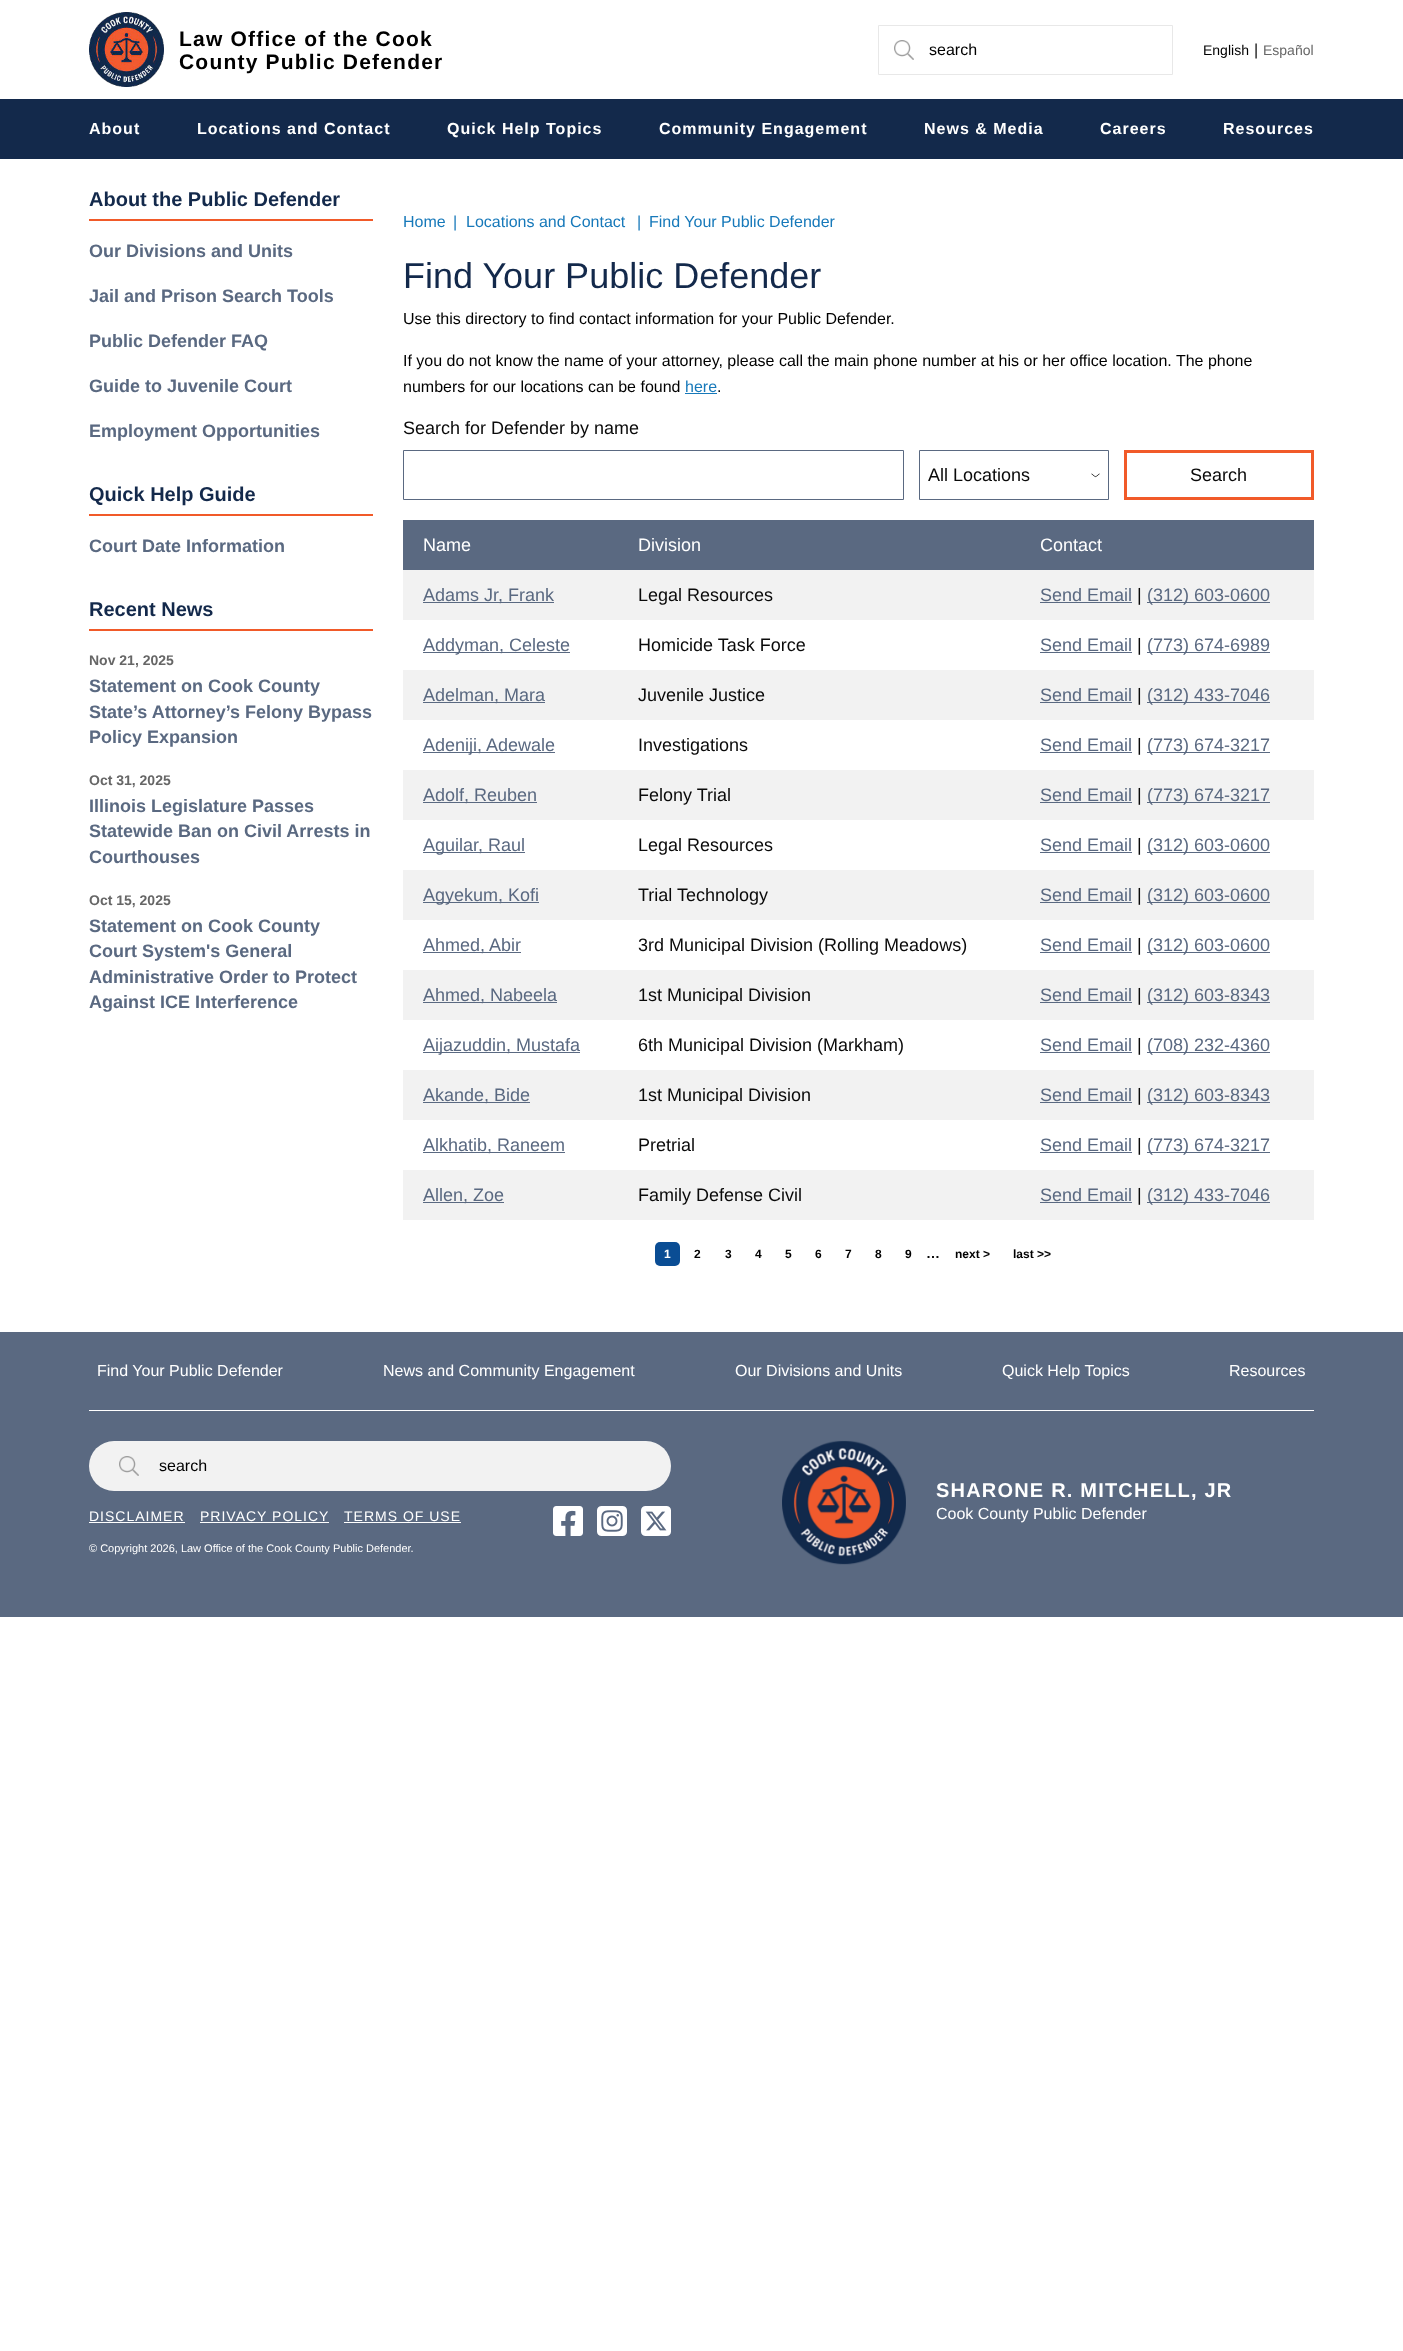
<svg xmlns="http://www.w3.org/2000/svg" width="1403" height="2351">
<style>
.a{font:bold 21px Liberation Sans;letter-spacing:1.2px;fill:#000}
.b{font:16px Liberation Sans;fill:#000}
.c{font:14px Liberation Sans;fill:#000}
.d{font:16px Liberation Sans;fill:#0a0a0a}
.e{font:14px Liberation Sans;fill:#666}
.f{font:bold 16px Liberation Sans;letter-spacing:1px;fill:#fff}
.g{font:bold 20px Liberation Sans;fill:#13294b}
.h{font:bold 18px Liberation Sans;fill:#5a6981}
.i{font:bold 14px Liberation Sans;fill:#666}
.j{font:16px Liberation Sans;fill:#1779ba}
.k{font:36px Liberation Sans;fill:#13294b}
.l{font:18px Liberation Sans;fill:#0a0a0a}
.m{font:18px Liberation Sans;fill:#fff}
.n{font:18px Liberation Sans;fill:#5a6981}
.o{font:bold 12px Liberation Sans;fill:#fff}
.p{font:bold 12px Liberation Sans;fill:#000}
.q{font:bold 14px Liberation Sans;fill:#0a0a0a}
.r{font:16px Liberation Sans;fill:#fff}
.s{font:14px Liberation Sans;letter-spacing:1px;fill:#fff}
.t{font:11px Liberation Sans;fill:#fff}
.u{font:bold 20px Liberation Sans;letter-spacing:1.2px;fill:#fff}
</style>
<rect width="100%" height="100%" fill="#fff"/>
<image href="1.png" x="89" y="12" width="75" height="75"/>
<image href="2.png" x="894" y="40" width="20" height="20"/>
<path fill="none" stroke="#e8e8e8" d="M878.5 25.5h294v49H878.5z"/>
<path fill="#13294b" d="M0 99h1403v60H0z"/>
<path fill="#f15a29" d="M89 219h284v2H89z"/>
<path fill="#f15a29" d="M89 514h284v2H89z"/>
<path fill="#f15a29" d="M89 629h284v2H89z"/>
<path fill="#1779ba" d="M685 393h32v1H685z"/>
<path fill="none" stroke="#5a6981" d="M403.5 450.5h500v49H403.5z"/>
<image href="3.png" x="1091" y="473" width="9" height="5"/>
<path fill="none" stroke="#5a6981" d="M919.5 450.5h189v49H919.5z"/>
<path fill="none" stroke="#f15a29" stroke-width="3" d="M1125.5 451.5h187v47H1125.5z"/>
<path fill="#5a6981" d="M403 520h911v50H403z"/>
<path fill="#f2f2f2" d="M403 570h911v50H403z"/>
<path fill="#5a6981" d="M423 602h131v1H423z"/>
<path fill="#5a6981" d="M1040 602h92v1H1040z"/>
<path fill="#5a6981" d="M1147 602h123v1H1147z"/>
<path fill="#5a6981" d="M423 652h147v1H423z"/>
<path fill="#5a6981" d="M1040 652h92v1H1040z"/>
<path fill="#5a6981" d="M1147 652h123v1H1147z"/>
<path fill="#f2f2f2" d="M403 670h911v50H403z"/>
<path fill="#5a6981" d="M423 702h122v1H423z"/>
<path fill="#5a6981" d="M1040 702h92v1H1040z"/>
<path fill="#5a6981" d="M1147 702h123v1H1147z"/>
<path fill="#5a6981" d="M423 752h132v1H423z"/>
<path fill="#5a6981" d="M1040 752h92v1H1040z"/>
<path fill="#5a6981" d="M1147 752h123v1H1147z"/>
<path fill="#f2f2f2" d="M403 770h911v50H403z"/>
<path fill="#5a6981" d="M423 802h114v1H423z"/>
<path fill="#5a6981" d="M1040 802h92v1H1040z"/>
<path fill="#5a6981" d="M1147 802h123v1H1147z"/>
<path fill="#5a6981" d="M423 852h102v1H423z"/>
<path fill="#5a6981" d="M1040 852h92v1H1040z"/>
<path fill="#5a6981" d="M1147 852h123v1H1147z"/>
<path fill="#f2f2f2" d="M403 870h911v50H403z"/>
<path fill="#5a6981" d="M423 902h116v1H423z"/>
<path fill="#5a6981" d="M1040 902h92v1H1040z"/>
<path fill="#5a6981" d="M1147 902h123v1H1147z"/>
<path fill="#5a6981" d="M423 952h98v1H423z"/>
<path fill="#5a6981" d="M1040 952h92v1H1040z"/>
<path fill="#5a6981" d="M1147 952h123v1H1147z"/>
<path fill="#f2f2f2" d="M403 970h911v50H403z"/>
<path fill="#5a6981" d="M423 1002h134v1H423z"/>
<path fill="#5a6981" d="M1040 1002h92v1H1040z"/>
<path fill="#5a6981" d="M1147 1002h123v1H1147z"/>
<path fill="#5a6981" d="M423 1052h157v1H423z"/>
<path fill="#5a6981" d="M1040 1052h92v1H1040z"/>
<path fill="#5a6981" d="M1147 1052h123v1H1147z"/>
<path fill="#f2f2f2" d="M403 1070h911v50H403z"/>
<path fill="#5a6981" d="M423 1102h107v1H423z"/>
<path fill="#5a6981" d="M1040 1102h92v1H1040z"/>
<path fill="#5a6981" d="M1147 1102h123v1H1147z"/>
<path fill="#5a6981" d="M423 1152h142v1H423z"/>
<path fill="#5a6981" d="M1040 1152h92v1H1040z"/>
<path fill="#5a6981" d="M1147 1152h123v1H1147z"/>
<path fill="#f2f2f2" d="M403 1170h911v50H403z"/>
<path fill="#5a6981" d="M423 1202h81v1H423z"/>
<path fill="#5a6981" d="M1040 1202h92v1H1040z"/>
<path fill="#5a6981" d="M1147 1202h123v1H1147z"/>
<rect fill="#0a4d94" x="655" y="1242" width="25" height="24" rx="5"/>
<path fill="#5a6981" d="M0 1332h1403v285H0z"/>
<path fill="#fff" d="M89 1410h1225v1H89z"/>
<rect fill="#f2f2f2" x="89" y="1441" width="582" height="50" rx="25"/>
<image href="4.png" x="119" y="1456" width="20" height="20"/>
<path fill="#fff" d="M89 1522h96v1H89z"/>
<path fill="#fff" d="M200 1522h129v1H200z"/>
<path fill="#fff" d="M344 1522h117v1H344z"/>
<image href="5.png" x="553" y="1506" width="30" height="30"/>
<image href="6.png" x="597" y="1506" width="30" height="30"/>
<image href="7.png" x="641" y="1506" width="30" height="30"/>
<image href="8.png" x="782" y="1440" width="124" height="125"/>
<text class="a" x="179" y="46">Law Office of the Cook</text>
<text class="a" x="179" y="69">County Public Defender</text>
<text class="b" x="929" y="55">search</text>
<text class="c" x="1203" y="55">English</text>
<text class="d" x="1254" y="55">|</text>
<text class="e" x="1263" y="55">Español</text>
<text class="f" x="89" y="134">About</text>
<text class="f" x="197" y="134">Locations and Contact</text>
<text class="f" x="447" y="134">Quick Help Topics</text>
<text class="f" x="659" y="134">Community Engagement</text>
<text class="f" x="924" y="134">News &amp; Media</text>
<text class="f" x="1100" y="134">Careers</text>
<text class="f" x="1223" y="134">Resources</text>
<text class="g" x="89" y="206">About the Public Defender</text>
<text class="h" x="89" y="257">Our Divisions and Units</text>
<text class="h" x="89" y="302">Jail and Prison Search Tools</text>
<text class="h" x="89" y="347">Public Defender FAQ</text>
<text class="h" x="89" y="392">Guide to Juvenile Court</text>
<text class="h" x="89" y="437">Employment Opportunities</text>
<text class="g" x="89" y="501">Quick Help Guide</text>
<text class="h" x="89" y="552">Court Date Information</text>
<text class="g" x="89" y="616">Recent News</text>
<text class="i" x="89" y="665">Nov 21, 2025</text>
<text class="h" x="89" y="692">Statement on Cook County</text>
<text class="h" x="89" y="718">State’s Attorney’s Felony Bypass</text>
<text class="h" x="89" y="743">Policy Expansion</text>
<text class="i" x="89" y="785">Oct 31, 2025</text>
<text class="h" x="89" y="812">Illinois Legislature Passes</text>
<text class="h" x="89" y="837">Statewide Ban on Civil Arrests in</text>
<text class="h" x="89" y="863">Courthouses</text>
<text class="i" x="89" y="905">Oct 15, 2025</text>
<text class="h" x="89" y="932">Statement on Cook County</text>
<text class="h" x="89" y="957">Court System's General</text>
<text class="h" x="89" y="983">Administrative Order to Protect</text>
<text class="h" x="89" y="1008">Against ICE Interference</text>
<text class="j" x="403" y="227">Home</text>
<text class="j" x="453" y="227">|</text>
<text class="j" x="466" y="227">Locations and Contact</text>
<text class="j" x="637" y="227">|</text>
<text class="j" x="649" y="227">Find Your Public Defender</text>
<text class="k" x="403" y="288">Find Your Public Defender</text>
<text class="b" x="403" y="324">Use this directory to find contact information for your Public Defender.</text>
<text class="b" x="403" y="366">If you do not know the name of your attorney, please call the main phone number at his or her office location. The phone</text>
<text class="b" x="403" y="392">numbers for our locations can be found</text>
<text class="j" x="685" y="392">here</text>
<text class="b" x="717" y="392">.</text>
<text class="l" x="403" y="434">Search for Defender by name</text>
<text class="l" x="928" y="481">All Locations</text>
<text class="l" x="1190" y="481">Search</text>
<text class="m" x="423" y="551">Name</text>
<text class="m" x="638" y="551">Division</text>
<text class="m" x="1040" y="551">Contact</text>
<text class="n" x="423" y="601">Adams Jr, Frank</text>
<text class="l" x="638" y="601">Legal Resources</text>
<text class="n" x="1040" y="601">Send Email</text>
<text class="l" x="1137" y="601">|</text>
<text class="n" x="1147" y="601">(312) 603-0600</text>
<text class="n" x="423" y="651">Addyman, Celeste</text>
<text class="l" x="638" y="651">Homicide Task Force</text>
<text class="n" x="1040" y="651">Send Email</text>
<text class="l" x="1137" y="651">|</text>
<text class="n" x="1147" y="651">(773) 674-6989</text>
<text class="n" x="423" y="701">Adelman, Mara</text>
<text class="l" x="638" y="701">Juvenile Justice</text>
<text class="n" x="1040" y="701">Send Email</text>
<text class="l" x="1137" y="701">|</text>
<text class="n" x="1147" y="701">(312) 433-7046</text>
<text class="n" x="423" y="751">Adeniji, Adewale</text>
<text class="l" x="638" y="751">Investigations</text>
<text class="n" x="1040" y="751">Send Email</text>
<text class="l" x="1137" y="751">|</text>
<text class="n" x="1147" y="751">(773) 674-3217</text>
<text class="n" x="423" y="801">Adolf, Reuben</text>
<text class="l" x="638" y="801">Felony Trial</text>
<text class="n" x="1040" y="801">Send Email</text>
<text class="l" x="1137" y="801">|</text>
<text class="n" x="1147" y="801">(773) 674-3217</text>
<text class="n" x="423" y="851">Aguilar, Raul</text>
<text class="l" x="638" y="851">Legal Resources</text>
<text class="n" x="1040" y="851">Send Email</text>
<text class="l" x="1137" y="851">|</text>
<text class="n" x="1147" y="851">(312) 603-0600</text>
<text class="n" x="423" y="901">Agyekum, Kofi</text>
<text class="l" x="638" y="901">Trial Technology</text>
<text class="n" x="1040" y="901">Send Email</text>
<text class="l" x="1137" y="901">|</text>
<text class="n" x="1147" y="901">(312) 603-0600</text>
<text class="n" x="423" y="951">Ahmed, Abir</text>
<text class="l" x="638" y="951">3rd Municipal Division (Rolling Meadows)</text>
<text class="n" x="1040" y="951">Send Email</text>
<text class="l" x="1137" y="951">|</text>
<text class="n" x="1147" y="951">(312) 603-0600</text>
<text class="n" x="423" y="1001">Ahmed, Nabeela</text>
<text class="l" x="638" y="1001">1st Municipal Division</text>
<text class="n" x="1040" y="1001">Send Email</text>
<text class="l" x="1137" y="1001">|</text>
<text class="n" x="1147" y="1001">(312) 603-8343</text>
<text class="n" x="423" y="1051">Aijazuddin, Mustafa</text>
<text class="l" x="638" y="1051">6th Municipal Division (Markham)</text>
<text class="n" x="1040" y="1051">Send Email</text>
<text class="l" x="1137" y="1051">|</text>
<text class="n" x="1147" y="1051">(708) 232-4360</text>
<text class="n" x="423" y="1101">Akande, Bide</text>
<text class="l" x="638" y="1101">1st Municipal Division</text>
<text class="n" x="1040" y="1101">Send Email</text>
<text class="l" x="1137" y="1101">|</text>
<text class="n" x="1147" y="1101">(312) 603-8343</text>
<text class="n" x="423" y="1151">Alkhatib, Raneem</text>
<text class="l" x="638" y="1151">Pretrial</text>
<text class="n" x="1040" y="1151">Send Email</text>
<text class="l" x="1137" y="1151">|</text>
<text class="n" x="1147" y="1151">(773) 674-3217</text>
<text class="n" x="423" y="1201">Allen, Zoe</text>
<text class="l" x="638" y="1201">Family Defense Civil</text>
<text class="n" x="1040" y="1201">Send Email</text>
<text class="l" x="1137" y="1201">|</text>
<text class="n" x="1147" y="1201">(312) 433-7046</text>
<text class="o" x="664" y="1258">1</text>
<text class="p" x="694" y="1258">2</text>
<text class="p" x="725" y="1258">3</text>
<text class="p" x="755" y="1258">4</text>
<text class="p" x="785" y="1258">5</text>
<text class="p" x="815" y="1258">6</text>
<text class="p" x="845" y="1258">7</text>
<text class="p" x="875" y="1258">8</text>
<text class="p" x="905" y="1258">9</text>
<text class="q" x="926" y="1258">…</text>
<text class="p" x="955" y="1258">next &gt;</text>
<text class="p" x="1013" y="1258">last &gt;&gt;</text>
<text class="r" x="97" y="1376">Find Your Public Defender</text>
<text class="r" x="383" y="1376">News and Community Engagement</text>
<text class="r" x="735" y="1376">Our Divisions and Units</text>
<text class="r" x="1002" y="1376">Quick Help Topics</text>
<text class="r" x="1229" y="1376">Resources</text>
<text class="b" x="159" y="1471">search</text>
<text class="s" x="89" y="1521">DISCLAIMER</text>
<text class="s" x="200" y="1521">PRIVACY POLICY</text>
<text class="s" x="344" y="1521">TERMS OF USE</text>
<text class="t" x="89" y="1552">© Copyright 2026, Law Office of the Cook County Public Defender.</text>
<text class="u" x="936" y="1497">SHARONE R. MITCHELL, JR</text>
<text class="r" x="936" y="1519">Cook County Public Defender</text>
</svg>
